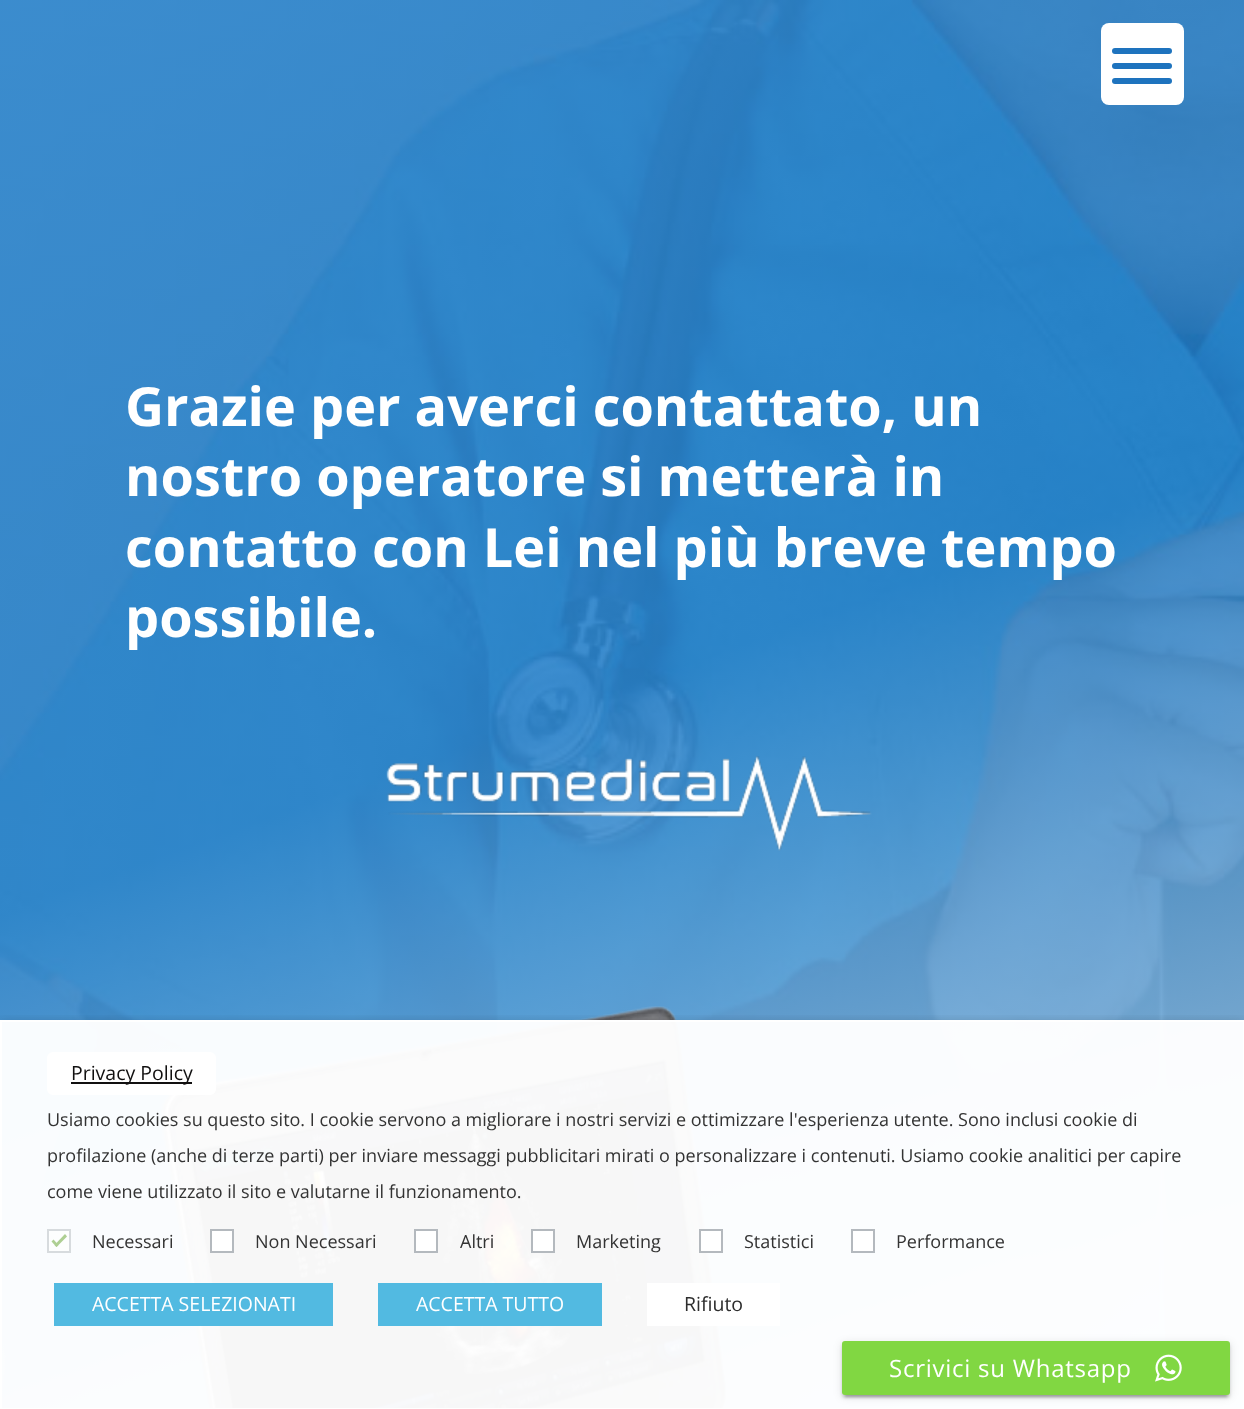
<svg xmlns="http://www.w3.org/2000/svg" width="1244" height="1409">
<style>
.a{font:bold 54px Open Sans;fill:#fff}
.b{font:19.5px Open Sans;fill:#111010}
.c{font:18px Open Sans;fill:#333}
.d{font:19.5px Open Sans;fill:#fff}
.e{font:19.5px Open Sans;fill:#2d2d2d}
.f{font:24px Open Sans;letter-spacing:0.75px;fill:#fff}
</style>
<defs>
<clipPath id="clip1"><path d="M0 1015h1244v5H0z"/></clipPath>
</defs>
<rect width="100%" height="100%" fill="#fff"/>
<image href="1.png" x="0" y="0" width="1244" height="1409"/>
<rect fill="#fff" x="1101" y="23" width="83" height="82" rx="8"/>
<rect fill="#1e73be" x="1112" y="63" width="60" height="6" rx="3"/>
<rect fill="#1e73be" x="1112" y="48" width="60" height="6" rx="3"/>
<rect fill="#1e73be" x="1112" y="78" width="60" height="6" rx="3"/>
<image href="2.png" x="386" y="756" width="486" height="95"/>
<image href="3.png" x="161" y="1006" width="566" height="403"/>
<g clip-path="url(#clip1)">
<path fill="#00000080" filter="blur(7.5px)" d="M0 1028h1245v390H0z"/>
</g>
<path fill="#fffffff7" d="M0 1020h1244v389H0z"/>
<path fill="none" stroke="#ffffffe6" stroke-width="2" d="M1 1021h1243v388H1z"/>
<rect fill="#fff" x="47" y="1052" width="169" height="43" rx="6"/>
<path fill="#111010" d="M71 1082h121v2H71z"/>
<path fill="#fdfefe" stroke="#d7dbde" stroke-width="2" d="M48 1230h22v22H48z"/>
<path fill="#aecf93" d="M65 1234l2 2.5l-10.5 10.5l-2-2z"/>
<path fill="#aecf93" d="M53.5 1239.5l5 5.5l-2 2l-5-5.5z"/>
<path fill="#fff" stroke="#b4b9be" stroke-width="2" d="M211 1230h22v22H211z"/>
<path fill="#fff" stroke="#b4b9be" stroke-width="2" d="M415 1230h22v22H415z"/>
<path fill="#fff" stroke="#b4b9be" stroke-width="2" d="M532 1230h22v22H532z"/>
<path fill="#fff" stroke="#b4b9be" stroke-width="2" d="M700 1230h22v22H700z"/>
<path fill="#fff" stroke="#b4b9be" stroke-width="2" d="M852 1230h22v22H852z"/>
<path fill="#52bae1" d="M54 1283h279v43H54z"/>
<path fill="#52bae1" d="M378 1283h224v43H378z"/>
<path fill="#fff" d="M647 1283h133v43H647z"/>
<path fill="#00000033" filter="blur(1px)" d="M845 1349h382v48H845z"/>
<rect fill="#0000001f" filter="blur(4px)" x="842" y="1343" width="388" height="54" rx="3"/>
<rect fill="#00000024" filter="blur(1.5px)" x="842" y="1344" width="388" height="54" rx="3"/>
<rect fill="#81d742" x="842" y="1341" width="388" height="54" rx="3"/>
<image href="4.png" x="1155" y="1354" width="27" height="28"/>
<text class="a" x="125" y="426">Grazie per averci contattato, un</text>
<text class="a" x="125" y="496">nostro operatore si metterà in</text>
<text class="a" x="125" y="567">contatto con Lei nel più breve tempo</text>
<text class="a" x="125" y="637">possibile.</text>
<text class="b" x="71" y="1080">Privacy Policy</text>
<text class="c" x="47" y="1126">Usiamo cookies su questo sito. I cookie servono a migliorare i nostri servizi e ottimizzare l'esperienza utente. Sono inclusi cookie di</text>
<text class="c" x="47" y="1162">profilazione (anche di terze parti) per inviare messaggi pubblicitari mirati o personalizzare i contenuti. Usiamo cookie analitici per capire</text>
<text class="c" x="47" y="1198">come viene utilizzato il sito e valutarne il funzionamento.</text>
<text class="c" x="92" y="1248">Necessari</text>
<text class="c" x="255" y="1248">Non Necessari</text>
<text class="c" x="460" y="1248">Altri</text>
<text class="c" x="576" y="1248">Marketing</text>
<text class="c" x="744" y="1248">Statistici</text>
<text class="c" x="896" y="1248">Performance</text>
<text class="d" x="92" y="1311">ACCETTA SELEZIONATI</text>
<text class="d" x="416" y="1311">ACCETTA TUTTO</text>
<text class="e" x="684" y="1311">Rifiuto</text>
<text class="f" x="889" y="1377">Scrivici su Whatsapp</text>
</svg>
